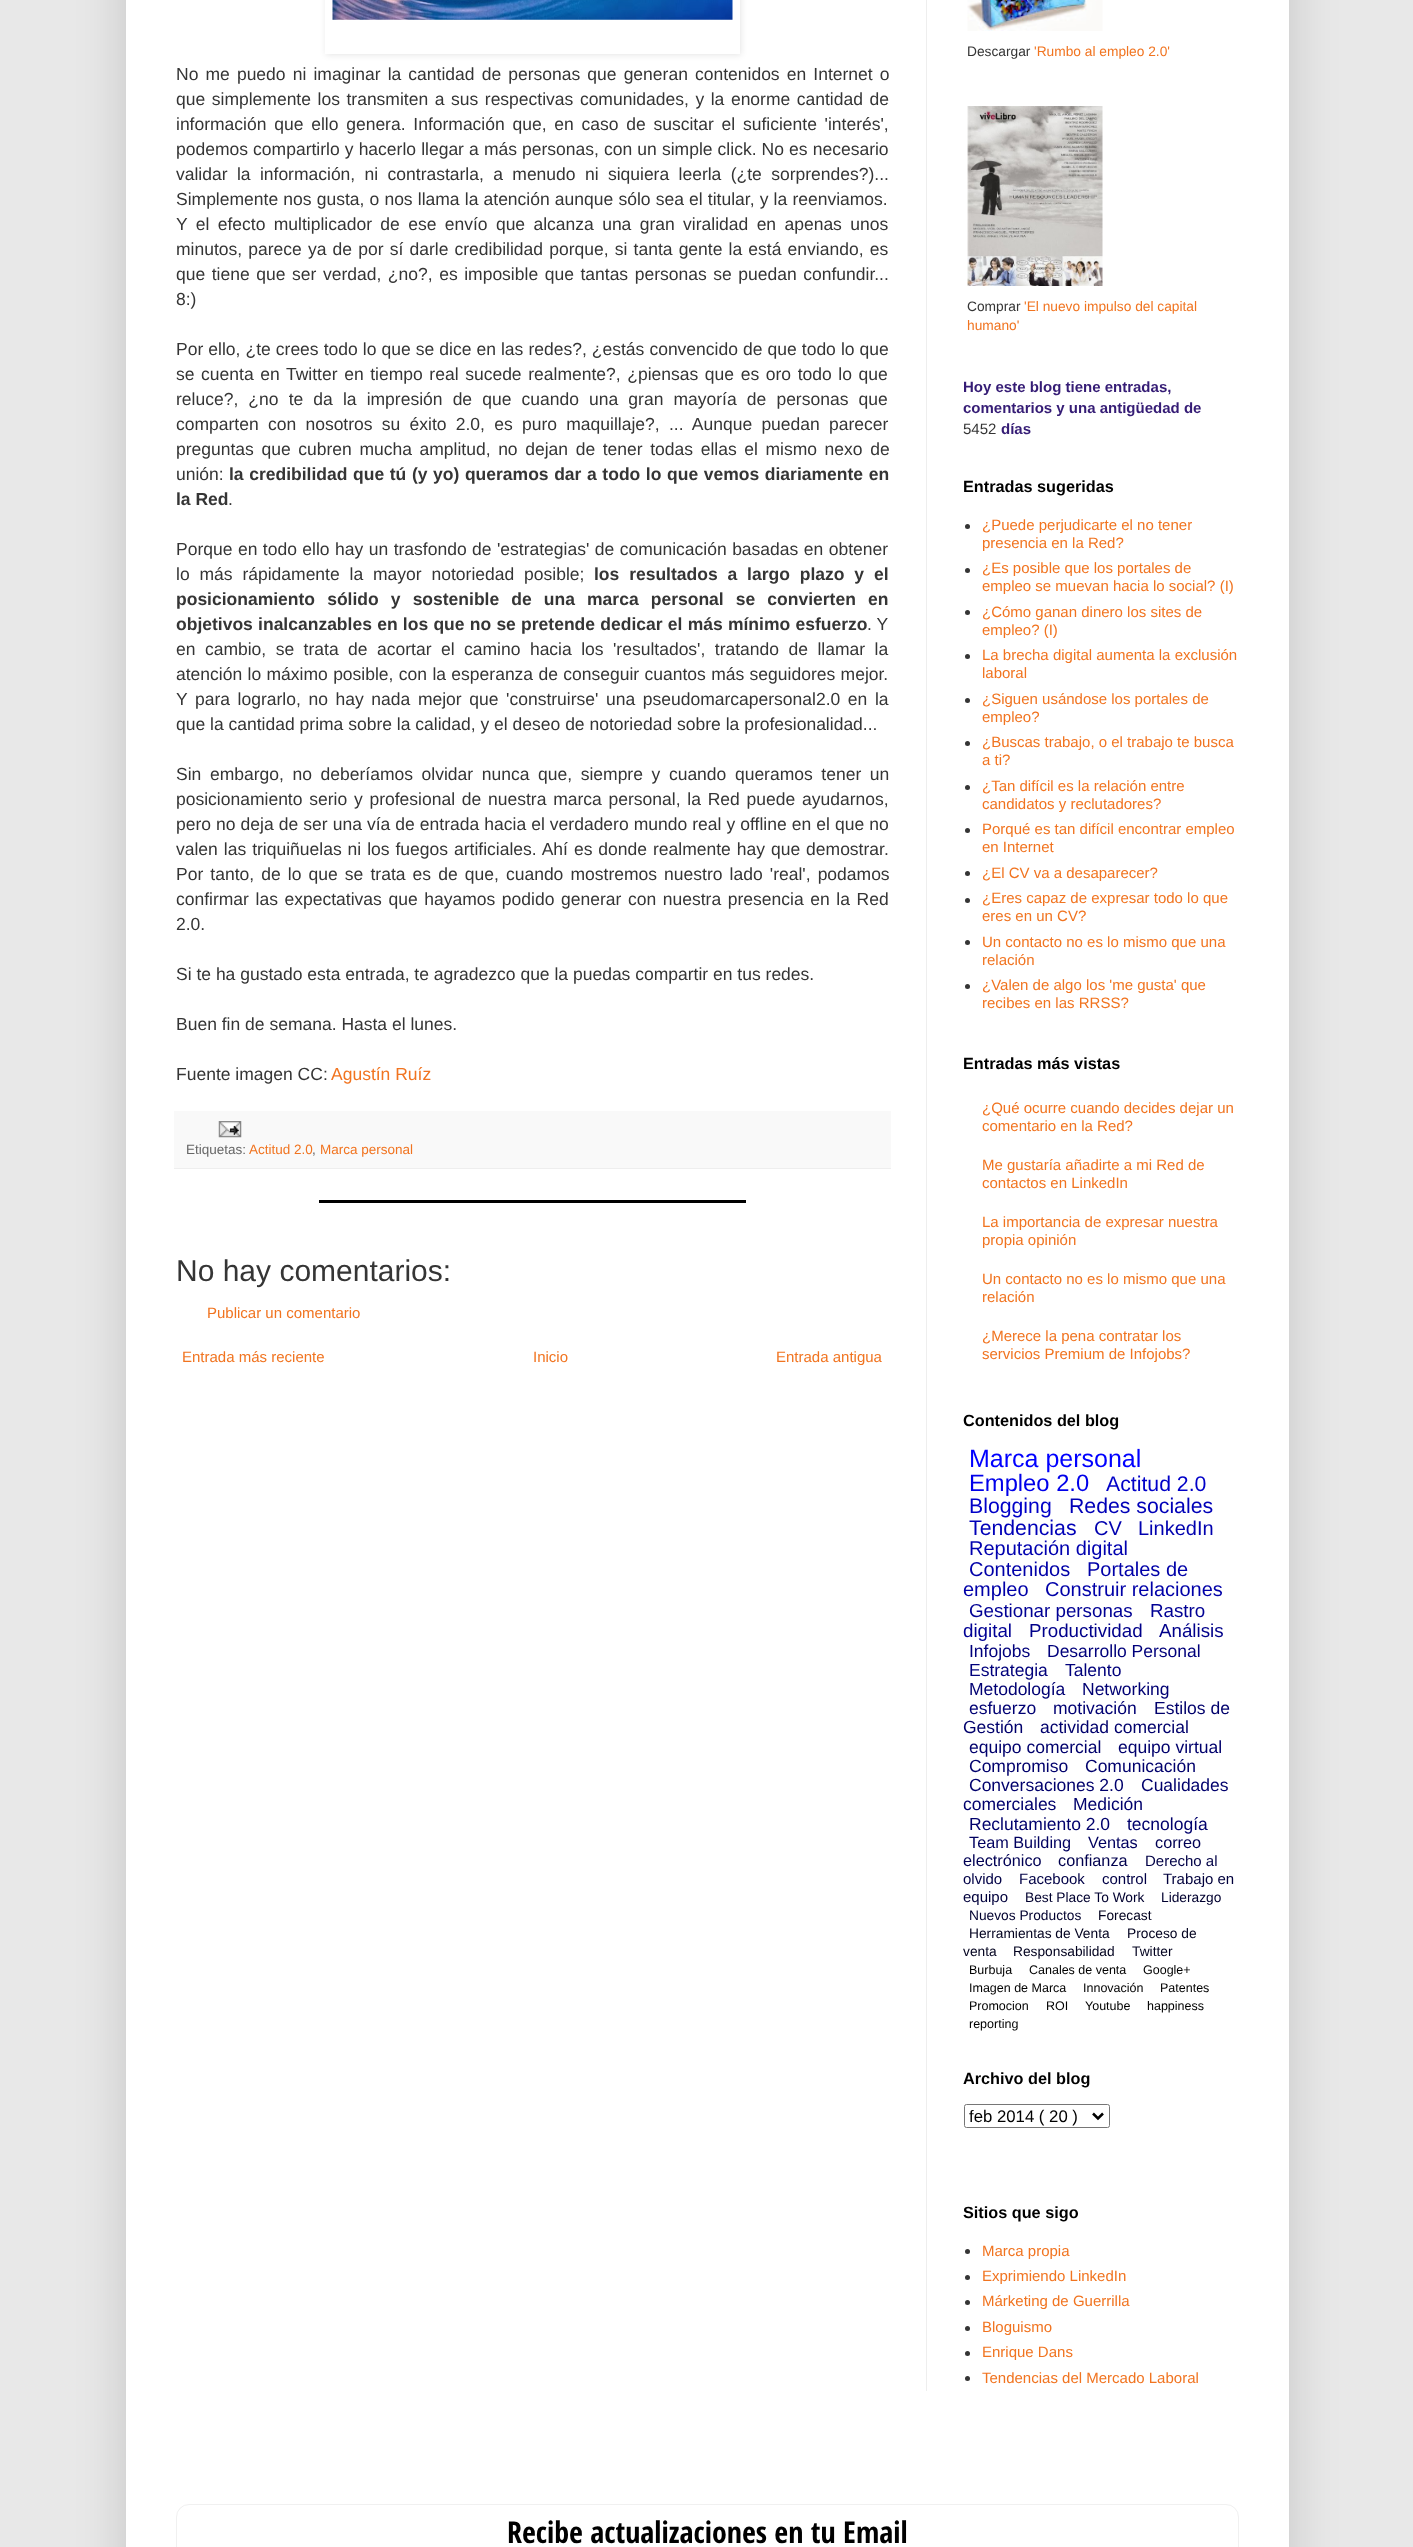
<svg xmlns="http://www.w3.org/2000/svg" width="1413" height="2547">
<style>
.a{font:17.5px Liberation Sans;fill:#353535}
.b{font:bold 17.5px Liberation Sans;fill:#353535}
.c{font:17.5px Liberation Sans;fill:#f17420}
.d{font:13.5px Liberation Sans;fill:#666}
.e{font:13.5px Liberation Sans;fill:#f17420}
.f{font:30px Liberation Sans;fill:#353535}
.g{font:15px Liberation Sans;fill:#f17420}
.h{font:13.75px Liberation Sans;fill:#353535}
.i{font:13.75px Liberation Sans;fill:#f17420}
.j{font:bold 15px Liberation Sans;fill:#351c75}
.k{font:15px Liberation Sans;fill:#353535}
.l{font:bold 16.25px Liberation Sans;fill:#000}
.m{font:25px Liberation Sans;fill:#00f}
.n{font:23.75px Liberation Sans;fill:#0000ea}
.o{font:21.25px Liberation Sans;fill:#0000c8}
.p{font:21.25px Liberation Sans;fill:#0000b8}
.q{font:20px Liberation Sans;fill:#0000af}
.r{font:20px Liberation Sans;fill:#0000a8}
.s{font:18.75px Liberation Sans;fill:#000094}
.t{font:18.75px Liberation Sans;fill:#00008a}
.u{font:17.5px Liberation Sans;fill:#00007b}
.v{font:17.5px Liberation Sans;fill:#000073}
.w{font:17.5px Liberation Sans;fill:#00006c}
.x{font:16.25px Liberation Sans;fill:#00005f}
.y{font:16.25px Liberation Sans;fill:#000054}
.z{font:16.25px Liberation Sans;fill:#00004e}
.a1{font:15px Liberation Sans;fill:#000046}
.b1{font:15px Liberation Sans;fill:#00003c}
.c1{font:13.75px Liberation Sans;fill:#00002f}
.d1{font:13.75px Liberation Sans;fill:#00001e}
.e1{font:12.5px Liberation Sans;fill:#000}
.f1{font:16.75px Liberation Sans;fill:#000}
.g1{font:bold 30px Open Sans Condensed;fill:#000}
</style>
<rect width="100%" height="100%" fill="#e8e8e8"/>
<path fill="#00000026" filter="blur(25px)" d="M126 -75h1163v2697H126z"/>
<path fill="#fff" d="M126 0h1163v2547H126z"/>
<path fill="#eee" d="M926 0h1v2391H926z"/>
<path fill="#0000001a" filter="blur(3px)" d="M326 -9h415v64H326z"/>
<path fill="#fff" d="M325 0h415v54H325z"/>
<image href="1.png" x="332" y="0" width="401" height="20"/>
<path fill="#f9f9f9" d="M174 1111h717v57H174z"/>
<path fill="#eee" d="M174 1168h717v1H174z"/>
<image href="2.png" x="218" y="1121" width="24" height="17"/>
<path fill="#000" d="M319 1200h427v3H319z"/>
<image href="3.png" x="967" y="0" width="136" height="31"/>
<image href="4.png" x="967" y="106" width="136" height="180"/>
<circle fill="#353535" cx="967.5" cy="526.5" r="2.5"/>
<circle fill="#353535" cx="967.5" cy="570.5" r="2.5"/>
<circle fill="#353535" cx="967.5" cy="612.5" r="2.5"/>
<circle fill="#353535" cx="967.5" cy="656.5" r="2.5"/>
<circle fill="#353535" cx="967.5" cy="700.5" r="2.5"/>
<circle fill="#353535" cx="967.5" cy="743.5" r="2.5"/>
<circle fill="#353535" cx="967.5" cy="787.5" r="2.5"/>
<circle fill="#353535" cx="967.5" cy="830.5" r="2.5"/>
<circle fill="#353535" cx="967.5" cy="873.5" r="2.5"/>
<circle fill="#353535" cx="967.5" cy="900.5" r="2.5"/>
<circle fill="#353535" cx="967.5" cy="942.5" r="2.5"/>
<circle fill="#353535" cx="967.5" cy="986.5" r="2.5"/>
<rect fill="none" stroke="#767676" x="964.5" y="2104.5" width="145" height="23" rx="2"/>
<path fill="none" stroke="#000" stroke-width="2.5" d="M1093 2113.5l5 5l5-5"/>
<circle fill="#353535" cx="967.5" cy="2251.5" r="2.5"/>
<circle fill="#353535" cx="967.5" cy="2277.5" r="2.5"/>
<circle fill="#353535" cx="967.5" cy="2302.5" r="2.5"/>
<circle fill="#353535" cx="967.5" cy="2328.5" r="2.5"/>
<circle fill="#353535" cx="967.5" cy="2353.5" r="2.5"/>
<circle fill="#353535" cx="967.5" cy="2378.5" r="2.5"/>
<rect fill="none" stroke="#f0f0f0" x="176.5" y="2504.5" width="1062" height="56" rx="12.5"/>
<text class="a" x="176" y="80" word-spacing="2.25">No me puedo ni imaginar la cantidad de personas que generan contenidos en Internet o</text>
<text class="a" x="176" y="105" word-spacing="1.7">que simplemente los transmiten a sus respectivas comunidades, y la enorme cantidad de</text>
<text class="a" x="176" y="130" word-spacing="2.9">información que ello genera. Información que, en caso de suscitar el suficiente 'interés',</text>
<text class="a" x="176" y="155" word-spacing="0.25">podemos compartirlo y hacerlo llegar a más personas, con un simple click. No es necesario</text>
<text class="a" x="176" y="180" word-spacing="4.5">validar la información, ni contrastarla, a menudo ni siquiera leerla (¿te sorprendes?)...</text>
<text class="a" x="176" y="205" word-spacing="0.3">Simplemente nos gusta, o nos llama la atención aunque sólo sea el titular, y la reenviamos.</text>
<text class="a" x="176" y="230" word-spacing="3.5">Y el efecto multiplicador de ese envío que alcanza una gran viralidad en apenas unos</text>
<text class="a" x="176" y="255" word-spacing="1.3">minutos, parece ya de por sí darle credibilidad porque, si tanta gente la está enviando, es</text>
<text class="a" x="176" y="280" word-spacing="1.7">que tiene que ser verdad, ¿no?, es imposible que tantas personas se puedan confundir...</text>
<text class="a" x="176" y="305">8:)</text>
<text class="a" x="176" y="355" word-spacing="0.2">Por ello, ¿te crees todo lo que se dice en las redes?, ¿estás convencido de que todo lo que</text>
<text class="a" x="176" y="380" word-spacing="1.75">se cuenta en Twitter en tiempo real sucede realmente?, ¿piensas que es oro todo lo que</text>
<text class="a" x="176" y="405" word-spacing="5.25">reluce?, ¿no te da la impresión de que cuando una gran mayoría de personas que</text>
<text class="a" x="176" y="430" word-spacing="4.4">comparten con nosotros su éxito 2.0, es puro maquillaje?, ... Aunque puedan parecer</text>
<text class="a" x="176" y="455" word-spacing="2.75">preguntas que cubren mucha amplitud, no dejan de tener todas ellas el mismo nexo de</text>
<text class="a" x="176" y="480">unión:</text>
<text class="b" x="229" y="480" word-spacing="0.75">la credibilidad que tú (y yo) queramos dar a todo lo que vemos diariamente en</text>
<text class="b" x="176" y="505">la Red</text>
<text class="a" x="228" y="505">.</text>
<text class="a" x="176" y="555" word-spacing="0.6">Porque en todo ello hay un trasfondo de 'estrategias' de comunicación basadas en obtener</text>
<text class="a" x="176" y="580" word-spacing="5">lo más rápidamente la mayor notoriedad posible;</text>
<text class="b" x="594" y="580" word-spacing="5">los resultados a largo plazo y el</text>
<text class="b" x="176" y="605" word-spacing="7.25">posicionamiento sólido y sostenible de una marca personal se convierten en</text>
<text class="b" x="176" y="630" word-spacing="0.4">objetivos inalcanzables en los que no se pretende dedicar el más mínimo esfuerzo</text>
<text class="a" x="867" y="630">. Y</text>
<text class="a" x="176" y="655" word-spacing="4.6">en cambio, se trata de acortar el camino hacia los 'resultados', tratando de llamar la</text>
<text class="a" x="176" y="680" word-spacing="0.5">atención lo máximo posible, con la esperanza de conseguir cuantos más seguidores mejor.</text>
<text class="a" x="176" y="705" word-spacing="2.75">Y para lograrlo, no hay nada mejor que 'construirse' una pseudomarcapersonal2.0 en la</text>
<text class="a" x="176" y="730">que la cantidad prima sobre la calidad, y el deseo de notoriedad sobre la profesionalidad...</text>
<text class="a" x="176" y="780" word-spacing="3.75">Sin embargo, no deberíamos olvidar nunca que, siempre y cuando queramos tener un</text>
<text class="a" x="176" y="805" word-spacing="1.9">posicionamiento serio y profesional de nuestra marca personal, la Red puede ayudarnos,</text>
<text class="a" x="176" y="830" word-spacing="0.2">pero no deja de ser una vía de entrada hacia el verdadero mundo real y offline en el que no</text>
<text class="a" x="176" y="855" word-spacing="1.1">valen las triquiñuelas ni los fuegos artificiales. Ahí es donde realmente hay que demostrar.</text>
<text class="a" x="176" y="880" word-spacing="2.25">Por tanto, de lo que se trata es de que, cuando mostremos nuestro lado 'real', podamos</text>
<text class="a" x="176" y="905" word-spacing="1.75">confirmar las expectativas que hayamos podido generar con nuestra presencia en la Red</text>
<text class="a" x="176" y="930">2.0.</text>
<text class="a" x="176" y="980">Si te ha gustado esta entrada, te agradezco que la puedas compartir en tus redes.</text>
<text class="a" x="176" y="1030">Buen fin de semana. Hasta el lunes.</text>
<text class="a" x="176" y="1080">Fuente imagen CC:</text>
<text class="c" x="331" y="1080">Agustín Ruíz</text>
<text class="d" x="186" y="1154">Etiquetas:</text>
<text class="e" x="249" y="1154">Actitud 2.0</text>
<text class="d" x="312" y="1154">,</text>
<text class="e" x="320" y="1154">Marca personal</text>
<text class="f" x="176" y="1281">No hay comentarios:</text>
<text class="g" x="207" y="1318">Publicar un comentario</text>
<text class="g" x="182" y="1362">Entrada más reciente</text>
<text class="g" x="533" y="1362">Inicio</text>
<text class="g" x="776" y="1362">Entrada antigua</text>
<text class="h" x="967" y="56">Descargar</text>
<text class="i" x="1034" y="56">'Rumbo al empleo 2.0'</text>
<text class="h" x="967" y="311">Comprar</text>
<text class="i" x="1024" y="311">'El nuevo impulso del capital</text>
<text class="i" x="967" y="330">humano'</text>
<text class="j" x="963" y="392">Hoy este blog tiene entradas,</text>
<text class="j" x="963" y="413">comentarios y una antigüedad de</text>
<text class="k" x="963" y="434">5452</text>
<text class="j" x="1001" y="434">días</text>
<text class="l" x="963" y="492">Entradas sugeridas</text>
<text class="g" x="982" y="530">¿Puede perjudicarte el no tener</text>
<text class="g" x="982" y="548">presencia en la Red?</text>
<text class="g" x="982" y="573">¿Es posible que los portales de</text>
<text class="g" x="982" y="591">empleo se muevan hacia lo social? (I)</text>
<text class="g" x="982" y="617">¿Cómo ganan dinero los sites de</text>
<text class="g" x="982" y="635">empleo? (I)</text>
<text class="g" x="982" y="660">La brecha digital aumenta la exclusión</text>
<text class="g" x="982" y="678">laboral</text>
<text class="g" x="982" y="704">¿Siguen usándose los portales de</text>
<text class="g" x="982" y="722">empleo?</text>
<text class="g" x="982" y="747">¿Buscas trabajo, o el trabajo te busca</text>
<text class="g" x="982" y="765">a ti?</text>
<text class="g" x="982" y="791">¿Tan difícil es la relación entre</text>
<text class="g" x="982" y="809">candidatos y reclutadores?</text>
<text class="g" x="982" y="834">Porqué es tan difícil encontrar empleo</text>
<text class="g" x="982" y="852">en Internet</text>
<text class="g" x="982" y="878">¿El CV va a desaparecer?</text>
<text class="g" x="982" y="903">¿Eres capaz de expresar todo lo que</text>
<text class="g" x="982" y="921">eres en un CV?</text>
<text class="g" x="982" y="947">Un contacto no es lo mismo que una</text>
<text class="g" x="982" y="965">relación</text>
<text class="g" x="982" y="990">¿Valen de algo los 'me gusta' que</text>
<text class="g" x="982" y="1008">recibes en las RRSS?</text>
<text class="l" x="963" y="1069">Entradas más vistas</text>
<text class="g" x="982" y="1113">¿Qué ocurre cuando decides dejar un</text>
<text class="g" x="982" y="1131">comentario en la Red?</text>
<text class="g" x="982" y="1170">Me gustaría añadirte a mi Red de</text>
<text class="g" x="982" y="1188">contactos en LinkedIn</text>
<text class="g" x="982" y="1227">La importancia de expresar nuestra</text>
<text class="g" x="982" y="1245">propia opinión</text>
<text class="g" x="982" y="1284">Un contacto no es lo mismo que una</text>
<text class="g" x="982" y="1302">relación</text>
<text class="g" x="982" y="1341">¿Merece la pena contratar los</text>
<text class="g" x="982" y="1359">servicios Premium de Infojobs?</text>
<text class="l" x="963" y="1426">Contenidos del blog</text>
<text class="m" x="969" y="1467">Marca personal</text>
<text class="n" x="969" y="1491">Empleo 2.0</text>
<text class="o" x="1106" y="1491">Actitud 2.0</text>
<text class="o" x="969" y="1513">Blogging</text>
<text class="p" x="1069" y="1513">Redes sociales</text>
<text class="p" x="969" y="1535">Tendencias</text>
<text class="q" x="1094" y="1535">CV</text>
<text class="q" x="1138" y="1535">LinkedIn</text>
<text class="q" x="969" y="1555">Reputación digital</text>
<text class="r" x="969" y="1576">Contenidos</text>
<text class="r" x="1087" y="1576">Portales de</text>
<text class="r" x="963" y="1596">empleo</text>
<text class="r" x="1045" y="1596">Construir relaciones</text>
<text class="s" x="969" y="1617">Gestionar personas</text>
<text class="s" x="1150" y="1617">Rastro</text>
<text class="s" x="963" y="1637">digital</text>
<text class="t" x="1029" y="1637">Productividad</text>
<text class="t" x="1159" y="1637">Análisis</text>
<text class="u" x="969" y="1657">Infojobs</text>
<text class="u" x="1047" y="1657">Desarrollo Personal</text>
<text class="u" x="969" y="1676">Estrategia</text>
<text class="u" x="1065" y="1676">Talento</text>
<text class="v" x="969" y="1695">Metodología</text>
<text class="v" x="1082" y="1695">Networking</text>
<text class="v" x="969" y="1714">esfuerzo</text>
<text class="v" x="1053" y="1714">motivación</text>
<text class="w" x="1154" y="1714">Estilos de</text>
<text class="w" x="963" y="1733">Gestión</text>
<text class="w" x="1040" y="1733">actividad comercial</text>
<text class="w" x="969" y="1753">equipo comercial</text>
<text class="w" x="1118" y="1753">equipo virtual</text>
<text class="w" x="969" y="1772">Compromiso</text>
<text class="w" x="1085" y="1772">Comunicación</text>
<text class="w" x="969" y="1791">Conversaciones 2.0</text>
<text class="w" x="1141" y="1791">Cualidades</text>
<text class="w" x="963" y="1810">comerciales</text>
<text class="w" x="1073" y="1810">Medición</text>
<text class="w" x="969" y="1830">Reclutamiento 2.0</text>
<text class="w" x="1127" y="1830">tecnología</text>
<text class="x" x="969" y="1848">Team Building</text>
<text class="x" x="1088" y="1848">Ventas</text>
<text class="y" x="1155" y="1848">correo</text>
<text class="y" x="963" y="1866">electrónico</text>
<text class="z" x="1058" y="1866">confianza</text>
<text class="a1" x="1145" y="1866">Derecho al</text>
<text class="a1" x="963" y="1884">olvido</text>
<text class="a1" x="1019" y="1884">Facebook</text>
<text class="a1" x="1102" y="1884">control</text>
<text class="b1" x="1163" y="1884">Trabajo en</text>
<text class="b1" x="963" y="1902">equipo</text>
<text class="c1" x="1025" y="1902">Best Place To Work</text>
<text class="c1" x="1161" y="1902">Liderazgo</text>
<text class="c1" x="969" y="1920">Nuevos Productos</text>
<text class="d1" x="1098" y="1920">Forecast</text>
<text class="d1" x="969" y="1938">Herramientas de Venta</text>
<text class="d1" x="1127" y="1938">Proceso de</text>
<text class="d1" x="963" y="1956">venta</text>
<text class="d1" x="1013" y="1956">Responsabilidad</text>
<text class="d1" x="1132" y="1956">Twitter</text>
<text class="e1" x="969" y="1974">Burbuja</text>
<text class="e1" x="1029" y="1974">Canales de venta</text>
<text class="e1" x="1143" y="1974">Google+</text>
<text class="e1" x="969" y="1992">Imagen de Marca</text>
<text class="e1" x="1083" y="1992">Innovación</text>
<text class="e1" x="1160" y="1992">Patentes</text>
<text class="e1" x="969" y="2010">Promocion</text>
<text class="e1" x="1046" y="2010">ROI</text>
<text class="e1" x="1085" y="2010">Youtube</text>
<text class="e1" x="1147" y="2010">happiness</text>
<text class="e1" x="969" y="2028">reporting</text>
<text class="l" x="963" y="2084">Archivo del blog</text>
<text class="f1" x="969" y="2122">feb 2014 ( 20 )</text>
<text class="l" x="963" y="2218">Sitios que sigo</text>
<text class="g" x="982" y="2256">Marca propia</text>
<text class="g" x="982" y="2281">Exprimiendo LinkedIn</text>
<text class="g" x="982" y="2306">Márketing de Guerrilla</text>
<text class="g" x="982" y="2332">Bloguismo</text>
<text class="g" x="982" y="2357">Enrique Dans</text>
<text class="g" x="982" y="2383">Tendencias del Mercado Laboral</text>
<text class="g1" x="507" y="2543">Recibe actualizaciones en tu Email</text>
</svg>
